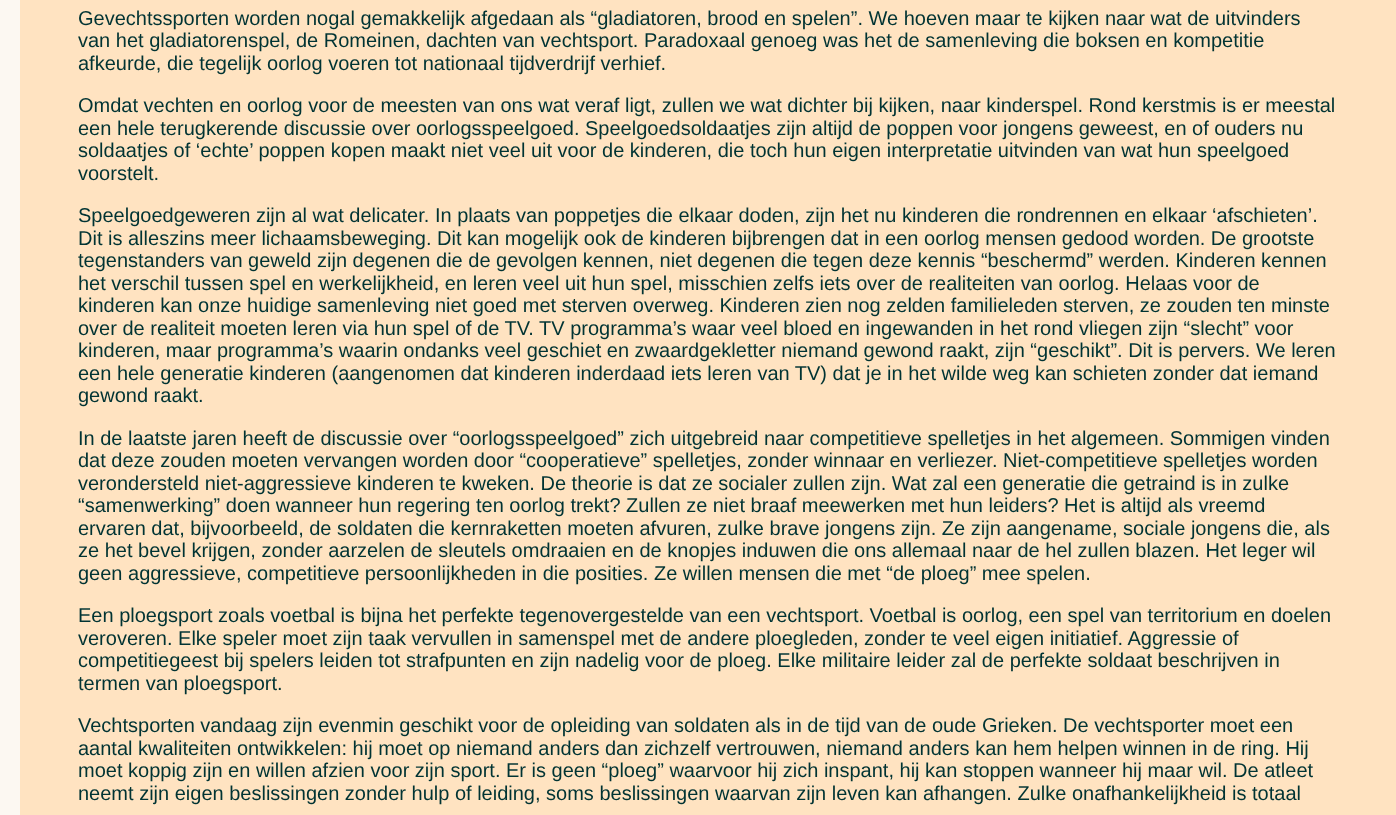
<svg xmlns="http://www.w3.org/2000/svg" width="1396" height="815">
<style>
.a{font:20px Liberation Sans;fill:#033}
</style>
<rect width="100%" height="100%" fill="#fcf8f2"/>
<path fill="#ffe3c1" d="M20 0h1376v815H20z"/>
<text class="a" x="78" y="25">Gevechtssporten worden nogal gemakkelijk afgedaan als “gladiatoren, brood en spelen”. We hoeven maar te kijken naar wat de uitvinders</text>
<text class="a" x="78" y="47">van het gladiatorenspel, de Romeinen, dachten van vechtsport. Paradoxaal genoeg was het de samenleving die boksen en kompetitie</text>
<text class="a" x="78" y="70">afkeurde, die tegelijk oorlog voeren tot nationaal tijdverdrijf verhief.</text>
<text class="a" x="78" y="112">Omdat vechten en oorlog voor de meesten van ons wat veraf ligt, zullen we wat dichter bij kijken, naar kinderspel. Rond kerstmis is er meestal</text>
<text class="a" x="78" y="135">een hele terugkerende discussie over oorlogsspeelgoed. Speelgoedsoldaatjes zijn altijd de poppen voor jongens geweest, en of ouders nu</text>
<text class="a" x="78" y="157">soldaatjes of ‘echte’ poppen kopen maakt niet veel uit voor de kinderen, die toch hun eigen interpretatie uitvinden van wat hun speelgoed</text>
<text class="a" x="78" y="180">voorstelt.</text>
<text class="a" x="78" y="222">Speelgoedgeweren zijn al wat delicater. In plaats van poppetjes die elkaar doden, zijn het nu kinderen die rondrennen en elkaar ‘afschieten’.</text>
<text class="a" x="78" y="245">Dit is alleszins meer lichaamsbeweging. Dit kan mogelijk ook de kinderen bijbrengen dat in een oorlog mensen gedood worden. De grootste</text>
<text class="a" x="78" y="267">tegenstanders van geweld zijn degenen die de gevolgen kennen, niet degenen die tegen deze kennis “beschermd” werden. Kinderen kennen</text>
<text class="a" x="78" y="290">het verschil tussen spel en werkelijkheid, en leren veel uit hun spel, misschien zelfs iets over de realiteiten van oorlog. Helaas voor de</text>
<text class="a" x="78" y="312">kinderen kan onze huidige samenleving niet goed met sterven overweg. Kinderen zien nog zelden familieleden sterven, ze zouden ten minste</text>
<text class="a" x="78" y="335">over de realiteit moeten leren via hun spel of de TV. TV programma’s waar veel bloed en ingewanden in het rond vliegen zijn “slecht” voor</text>
<text class="a" x="78" y="357">kinderen, maar programma’s waarin ondanks veel geschiet en zwaardgekletter niemand gewond raakt, zijn “geschikt”. Dit is pervers. We leren</text>
<text class="a" x="78" y="380">een hele generatie kinderen (aangenomen dat kinderen inderdaad iets leren van TV) dat je in het wilde weg kan schieten zonder dat iemand</text>
<text class="a" x="78" y="402">gewond raakt.</text>
<text class="a" x="78" y="445">In de laatste jaren heeft de discussie over “oorlogsspeelgoed” zich uitgebreid naar competitieve spelletjes in het algemeen. Sommigen vinden</text>
<text class="a" x="78" y="467">dat deze zouden moeten vervangen worden door “cooperatieve” spelletjes, zonder winnaar en verliezer. Niet-competitieve spelletjes worden</text>
<text class="a" x="78" y="490">verondersteld niet-aggressieve kinderen te kweken. De theorie is dat ze socialer zullen zijn. Wat zal een generatie die getraind is in zulke</text>
<text class="a" x="78" y="512">“samenwerking” doen wanneer hun regering ten oorlog trekt? Zullen ze niet braaf meewerken met hun leiders? Het is altijd als vreemd</text>
<text class="a" x="78" y="535">ervaren dat, bijvoorbeeld, de soldaten die kernraketten moeten afvuren, zulke brave jongens zijn. Ze zijn aangename, sociale jongens die, als</text>
<text class="a" x="78" y="557">ze het bevel krijgen, zonder aarzelen de sleutels omdraaien en de knopjes induwen die ons allemaal naar de hel zullen blazen. Het leger wil</text>
<text class="a" x="78" y="580">geen aggressieve, competitieve persoonlijkheden in die posities. Ze willen mensen die met “de ploeg” mee spelen.</text>
<text class="a" x="78" y="622">Een ploegsport zoals voetbal is bijna het perfekte tegenovergestelde van een vechtsport. Voetbal is oorlog, een spel van territorium en doelen</text>
<text class="a" x="78" y="645">veroveren. Elke speler moet zijn taak vervullen in samenspel met de andere ploegleden, zonder te veel eigen initiatief. Aggressie of</text>
<text class="a" x="78" y="667">competitiegeest bij spelers leiden tot strafpunten en zijn nadelig voor de ploeg. Elke militaire leider zal de perfekte soldaat beschrijven in</text>
<text class="a" x="78" y="690">termen van ploegsport.</text>
<text class="a" x="78" y="732">Vechtsporten vandaag zijn evenmin geschikt voor de opleiding van soldaten als in de tijd van de oude Grieken. De vechtsporter moet een</text>
<text class="a" x="78" y="755">aantal kwaliteiten ontwikkelen: hij moet op niemand anders dan zichzelf vertrouwen, niemand anders kan hem helpen winnen in de ring. Hij</text>
<text class="a" x="78" y="777">moet koppig zijn en willen afzien voor zijn sport. Er is geen “ploeg” waarvoor hij zich inspant, hij kan stoppen wanneer hij maar wil. De atleet</text>
<text class="a" x="78" y="800">neemt zijn eigen beslissingen zonder hulp of leiding, soms beslissingen waarvan zijn leven kan afhangen. Zulke onafhankelijkheid is totaal</text>
</svg>
